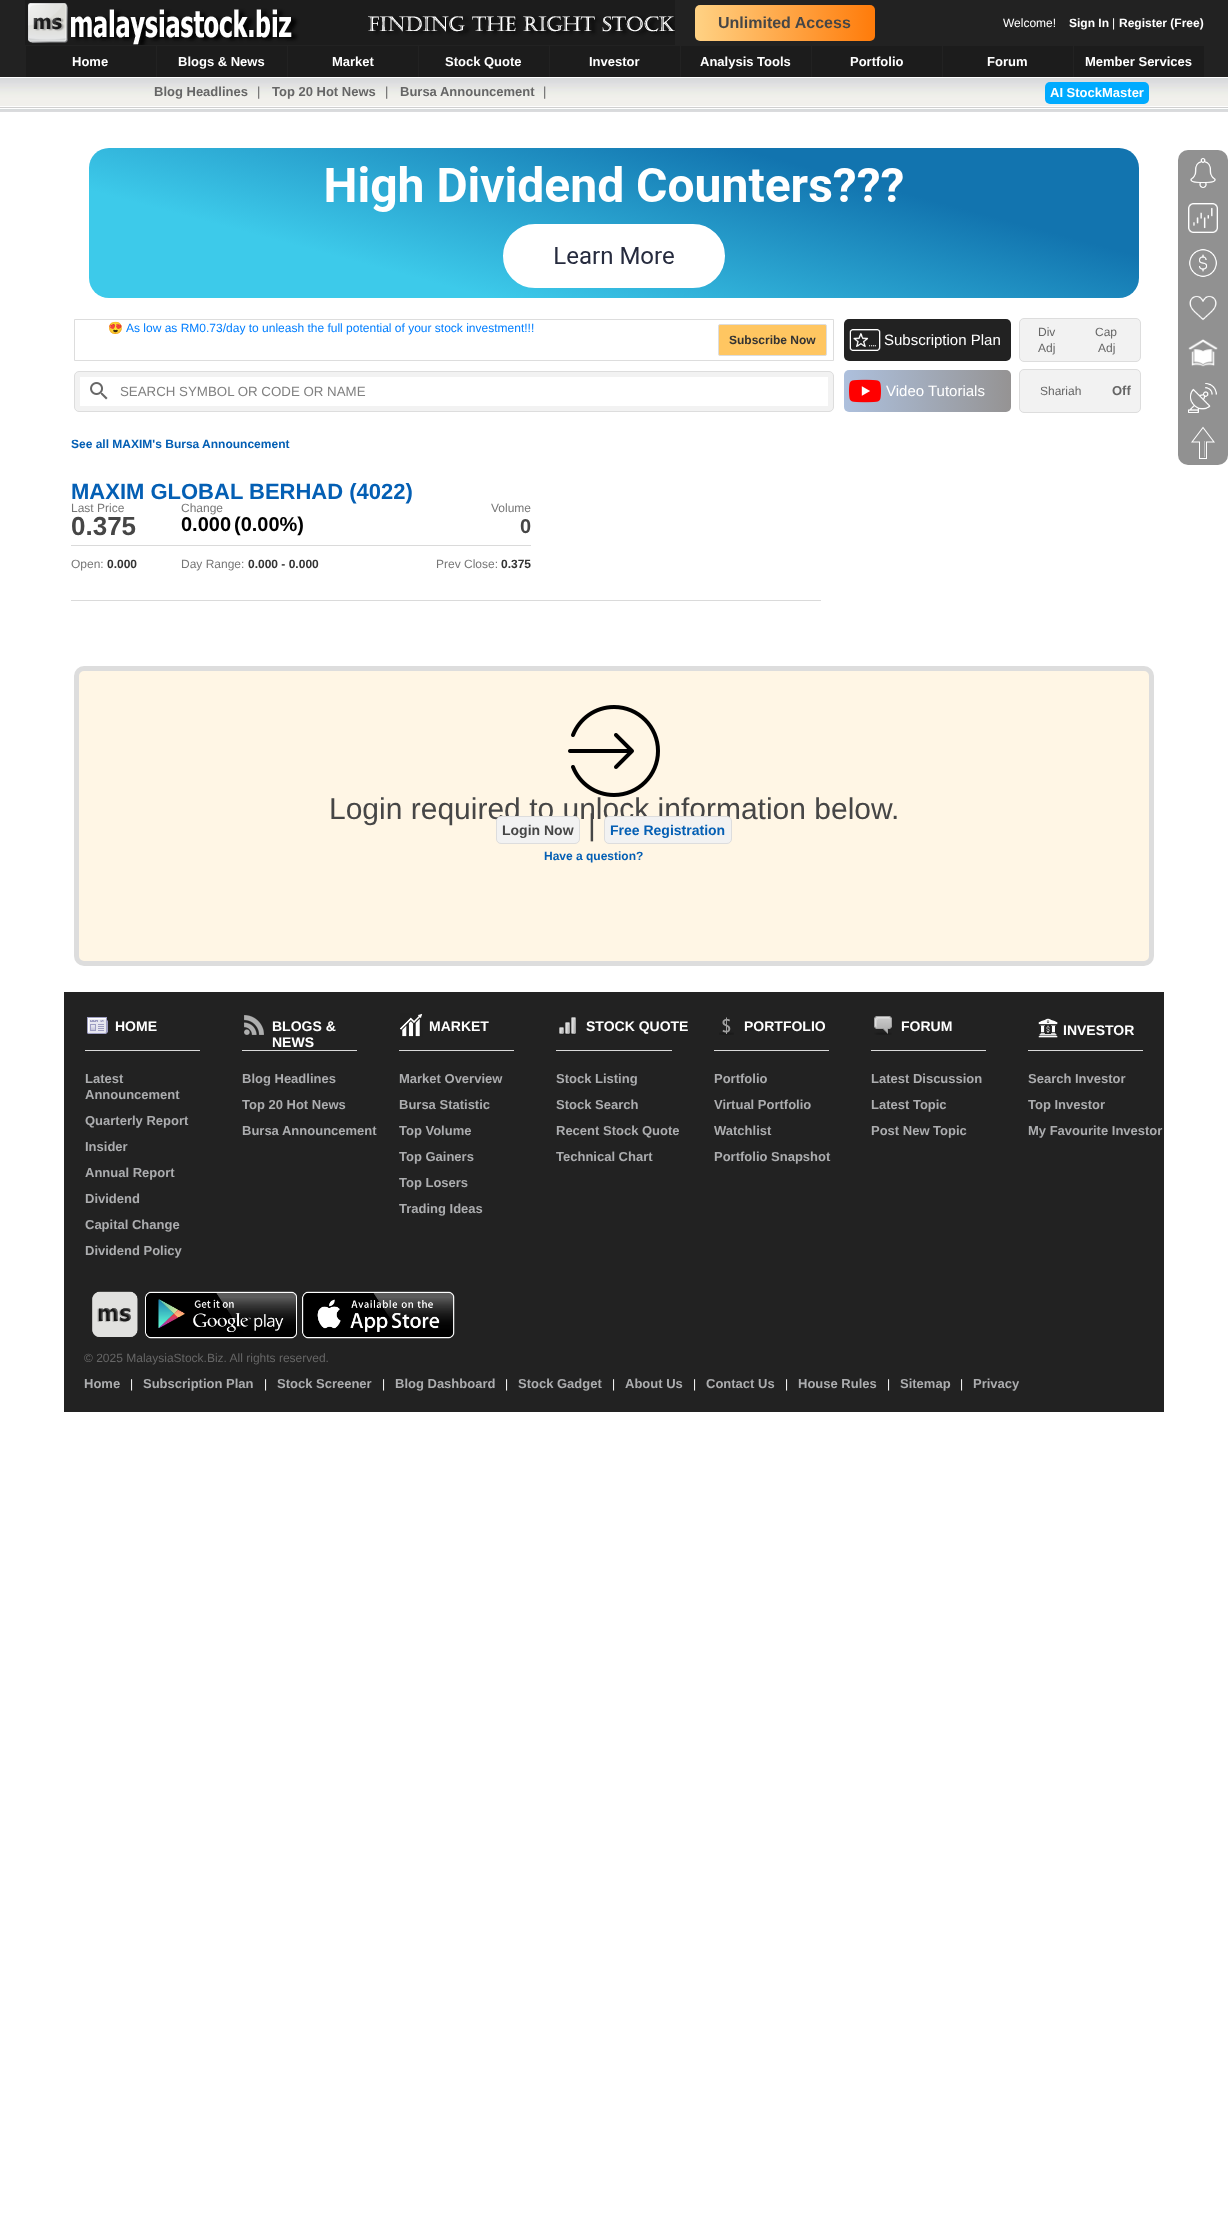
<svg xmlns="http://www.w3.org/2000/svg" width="1228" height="2217">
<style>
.a{font:bold 16px Liberation Sans;fill:#464646}
.b{font:12px Liberation Sans;fill:#fff}
.c{font:bold 12px Liberation Sans;fill:#fff}
.d{font:bold 13px Liberation Sans;fill:#fff}
.e{font:bold 13px Liberation Sans;fill:#666}
.f{font:13px Liberation Sans;fill:#666}
.g{font:12px Noto Color Emoji;fill:#007eff}
.h{font:12px Liberation Sans;fill:#007eff}
.i{font:bold 12px Liberation Sans;fill:#333}
.j{font:15px Liberation Sans;fill:#fff}
.k{font:12px Liberation Sans;fill:#666}
.l{font:13.3px Liberation Sans;fill:#808080}
.m{font:bold 12px Liberation Sans;fill:#045fb4}
.n{font:bold 22px Liberation Sans;fill:#045fb4}
.o{font:12px Liberation Sans;fill:#777}
.p{font:bold 26px Liberation Sans;fill:#464646}
.q{font:bold 20px Liberation Sans;fill:#000}
.r{font:bold 20px Liberation Sans;fill:#464646}
.s{font:30px Liberation Sans;fill:#464646}
.t{font:bold 14px Liberation Sans;fill:#464646}
.u{font:bold 14px Liberation Sans;fill:#045fb4}
.v{font:bold 14px Liberation Sans;fill:#fff}
.w{font:bold 13px Liberation Sans;fill:#acadaf}
</style>
<defs>
<linearGradient id="g1" gradientUnits="userSpaceOnUse" x1="695" y1="23" x2="875" y2="23"><stop offset="0" stop-color="#ffd284"/><stop offset="1" stop-color="#ff7b0a"/></linearGradient>
<linearGradient id="g2" gradientUnits="userSpaceOnUse" x1="844" y1="391" x2="1011" y2="391"><stop offset="0" stop-color="#adc0dd"/><stop offset="1" stop-color="#959393"/></linearGradient>
</defs>
<rect width="100%" height="100%" fill="#fff"/>
<path fill="#222" d="M0 0h1228v77H0z"/>
<image href="1.png" x="25" y="0" width="650" height="45"/>
<rect fill="url(#g1)" x="695" y="5" width="180" height="36" rx="5"/>
<path fill="#1c1c1c" d="M26 46h130v31H26z"/>
<path fill="#1c1c1c" d="M157 46h130v31H157z"/>
<path fill="#1c1c1c" d="M288 46h130v31H288z"/>
<path fill="#1c1c1c" d="M419 46h130v31H419z"/>
<path fill="#1c1c1c" d="M550 46h130v31H550z"/>
<path fill="#1c1c1c" d="M681 46h130v31H681z"/>
<path fill="#1c1c1c" d="M812 46h130v31H812z"/>
<path fill="#1c1c1c" d="M943 46h130v31H943z"/>
<path fill="#1c1c1c" d="M1074 46h130v31H1074z"/>
<image href="2.png" x="0" y="78" width="1228" height="34"/>
<rect fill="#00abff" x="1045" y="82" width="104" height="22" rx="5"/>
<image href="3.png" x="89" y="148" width="1050" height="150"/>
<path fill="none" stroke="#ddd" d="M74.5 319.5h759v41H74.5z"/>
<rect fill="#ffc661" stroke="#ddd" x="718.5" y="324.5" width="108" height="31" rx="1.5"/>
<rect fill="#222" x="844" y="319" width="167" height="42" rx="5"/>
<image href="4.png" x="849" y="329" width="32" height="22"/>
<rect fill="#f2f2f2" stroke="#ddd" x="1019.5" y="318.5" width="121" height="43" rx="4.5"/>
<rect fill="#f2f2f2" stroke="#ddd" x="74.5" y="371.5" width="759" height="40" rx="4.5"/>
<path fill="#fff" d="M80 377h748v29H80z"/>
<image href="5.png" x="90" y="382" width="18" height="18"/>
<rect fill="url(#g2)" x="844" y="370" width="167" height="42" rx="5"/>
<image href="6.png" x="849" y="379" width="32" height="24"/>
<rect fill="#f2f2f2" stroke="#ddd" x="1019.5" y="369.5" width="121" height="43" rx="4.5"/>
<path fill="#dadada" d="M71 545h460v1H71z"/>
<path fill="#dadada" d="M71 600h750v1H71z"/>
<rect fill="#fff6e5" stroke="#ddd" stroke-width="5" x="76.5" y="668.5" width="1075" height="295" rx="7.5"/>
<image href="7.png" x="568" y="705" width="92" height="92"/>
<path fill="#222" d="M64 992h1100v420H64z"/>
<image href="8.png" x="87" y="1017" width="21" height="18"/>
<path fill="#dadada" d="M85 1050h115v1H85z"/>
<image href="9.png" x="244" y="1015" width="20" height="20"/>
<path fill="#dadada" d="M242 1050h115v1H242z"/>
<image href="10.png" x="400" y="1013" width="23" height="24"/>
<path fill="#dadada" d="M399 1050h115v1H399z"/>
<image href="11.png" x="559" y="1017" width="17" height="18"/>
<path fill="#dadada" d="M556 1050h116v1H556z"/>
<image href="12.png" x="719" y="1017" width="15" height="18"/>
<path fill="#dadada" d="M714 1050h115v1H714z"/>
<image href="13.png" x="874" y="1016" width="18" height="19"/>
<path fill="#dadada" d="M871 1050h115v1H871z"/>
<image href="14.png" x="1038" y="1018" width="20" height="20"/>
<path fill="#dadada" d="M1028 1050h115v1H1028z"/>
<image href="15.png" x="92" y="1291" width="363" height="48"/>
<rect fill="#919191" x="1178" y="150" width="50" height="315" rx="10"/>
<image href="16.png" x="1190" y="158" width="26" height="30"/>
<image href="17.png" x="1188" y="203" width="30" height="30"/>
<image href="18.png" x="1189" y="249" width="28" height="28"/>
<image href="19.png" x="1189" y="295" width="28" height="26"/>
<image href="20.png" x="1188" y="339" width="30" height="28"/>
<image href="21.png" x="1188" y="383" width="29" height="30"/>
<image href="22.png" x="1191" y="426" width="24" height="33"/>
<text class="a" x="718" y="28">Unlimited Access</text>
<text class="b" x="1003" y="27">Welcome!</text>
<text class="c" x="1069" y="27">Sign In</text>
<text class="b" x="1112" y="27">|</text>
<text class="c" x="1119" y="27">Register (Free)</text>
<text class="d" x="72" y="66">Home</text>
<text class="d" x="178" y="66">Blogs &amp; News</text>
<text class="d" x="332" y="66">Market</text>
<text class="d" x="445" y="66">Stock Quote</text>
<text class="d" x="589" y="66">Investor</text>
<text class="d" x="700" y="66">Analysis Tools</text>
<text class="d" x="850" y="66">Portfolio</text>
<text class="d" x="987" y="66">Forum</text>
<text class="d" x="1085" y="66">Member Services</text>
<text class="e" x="154" y="96">Blog Headlines</text>
<text class="f" x="257" y="96">|</text>
<text class="e" x="272" y="96">Top 20 Hot News</text>
<text class="f" x="385" y="96">|</text>
<text class="e" x="400" y="96">Bursa Announcement</text>
<text class="f" x="543" y="96">|</text>
<text class="d" x="1050" y="97">AI StockMaster</text>
<text class="g" x="108" y="332">😍</text>
<text class="h" x="126" y="332">As low as RM0.73/day to unleash the full potential of your stock investment!!!</text>
<text class="i" x="729" y="344">Subscribe Now</text>
<text class="j" x="884" y="345">Subscription Plan</text>
<text class="k" x="1038" y="336">Div</text>
<text class="k" x="1038" y="352">Adj</text>
<text class="k" x="1095" y="336">Cap</text>
<text class="k" x="1098" y="352">Adj</text>
<text class="l" x="120" y="396">SEARCH SYMBOL OR CODE OR NAME</text>
<text class="j" x="886" y="396">Video Tutorials</text>
<text class="k" x="1040" y="395">Shariah</text>
<text class="e" x="1112" y="395">Off</text>
<text class="m" x="71" y="448">See all MAXIM's Bursa Announcement</text>
<text class="n" x="71" y="499">MAXIM GLOBAL BERHAD (4022)</text>
<text class="o" x="71" y="512">Last Price</text>
<text class="o" x="181" y="512">Change</text>
<text class="o" x="491" y="512">Volume</text>
<text class="p" x="71" y="535">0.375</text>
<text class="q" x="181" y="531">0.000</text>
<text class="q" x="234" y="531">(0.00%)</text>
<text class="r" x="520" y="533">0</text>
<text class="o" x="71" y="568">Open:</text>
<text class="i" x="107" y="568">0.000</text>
<text class="o" x="181" y="568">Day Range:</text>
<text class="i" x="248" y="568">0.000 - 0.000</text>
<text class="o" x="436" y="568">Prev Close:</text>
<text class="i" x="501" y="568">0.375</text>
<text class="s" x="329" y="819">Login required to unlock information below.</text>
<rect fill="#f2f2f2" stroke="#ddd" x="496.5" y="816.5" width="83" height="27" rx="4.5"/>
<text class="t" x="502" y="835">Login Now</text>
<text class="s" x="588" y="835">|</text>
<rect fill="#f2f2f2" stroke="#ddd" x="604.5" y="816.5" width="127" height="27" rx="4.5"/>
<text class="u" x="610" y="835">Free Registration</text>
<text class="m" x="544" y="860">Have a question?</text>
<text class="v" x="115" y="1031">HOME</text>
<text class="w" x="85" y="1083">Latest</text>
<text class="w" x="85" y="1099">Announcement</text>
<text class="w" x="85" y="1125">Quarterly Report</text>
<text class="w" x="85" y="1151">Insider</text>
<text class="w" x="85" y="1177">Annual Report</text>
<text class="w" x="85" y="1203">Dividend</text>
<text class="w" x="85" y="1229">Capital Change</text>
<text class="w" x="85" y="1255">Dividend Policy</text>
<text class="v" x="272" y="1031">BLOGS &amp;</text>
<text class="v" x="272" y="1047">NEWS</text>
<text class="w" x="242" y="1083">Blog Headlines</text>
<text class="w" x="242" y="1109">Top 20 Hot News</text>
<text class="w" x="242" y="1135">Bursa Announcement</text>
<text class="v" x="429" y="1031">MARKET</text>
<text class="w" x="399" y="1083">Market Overview</text>
<text class="w" x="399" y="1109">Bursa Statistic</text>
<text class="w" x="399" y="1135">Top Volume</text>
<text class="w" x="399" y="1161">Top Gainers</text>
<text class="w" x="399" y="1187">Top Losers</text>
<text class="w" x="399" y="1213">Trading Ideas</text>
<text class="v" x="586" y="1031">STOCK QUOTE</text>
<text class="w" x="556" y="1083">Stock Listing</text>
<text class="w" x="556" y="1109">Stock Search</text>
<text class="w" x="556" y="1135">Recent Stock Quote</text>
<text class="w" x="556" y="1161">Technical Chart</text>
<text class="v" x="744" y="1031">PORTFOLIO</text>
<text class="w" x="714" y="1083">Portfolio</text>
<text class="w" x="714" y="1109">Virtual Portfolio</text>
<text class="w" x="714" y="1135">Watchlist</text>
<text class="w" x="714" y="1161">Portfolio Snapshot</text>
<text class="v" x="901" y="1031">FORUM</text>
<text class="w" x="871" y="1083">Latest Discussion</text>
<text class="w" x="871" y="1109">Latest Topic</text>
<text class="w" x="871" y="1135">Post New Topic</text>
<text class="v" x="1063" y="1035">INVESTOR</text>
<text class="w" x="1028" y="1083">Search Investor</text>
<text class="w" x="1028" y="1109">Top Investor</text>
<text class="w" x="1028" y="1135">My Favourite Investor</text>
<text class="k" x="84" y="1362">© 2025 MalaysiaStock.Biz. All rights reserved.</text>
<text class="w" x="84" y="1388">Home</text>
<text class="b" x="130" y="1388">|</text>
<text class="w" x="143" y="1388">Subscription Plan</text>
<text class="b" x="264" y="1388">|</text>
<text class="w" x="277" y="1388">Stock Screener</text>
<text class="b" x="382" y="1388">|</text>
<text class="w" x="395" y="1388">Blog Dashboard</text>
<text class="b" x="505" y="1388">|</text>
<text class="w" x="518" y="1388">Stock Gadget</text>
<text class="b" x="612" y="1388">|</text>
<text class="w" x="625" y="1388">About Us</text>
<text class="b" x="693" y="1388">|</text>
<text class="w" x="706" y="1388">Contact Us</text>
<text class="b" x="785" y="1388">|</text>
<text class="w" x="798" y="1388">House Rules</text>
<text class="b" x="887" y="1388">|</text>
<text class="w" x="900" y="1388">Sitemap</text>
<text class="b" x="960" y="1388">|</text>
<text class="w" x="973" y="1388">Privacy</text>
</svg>
